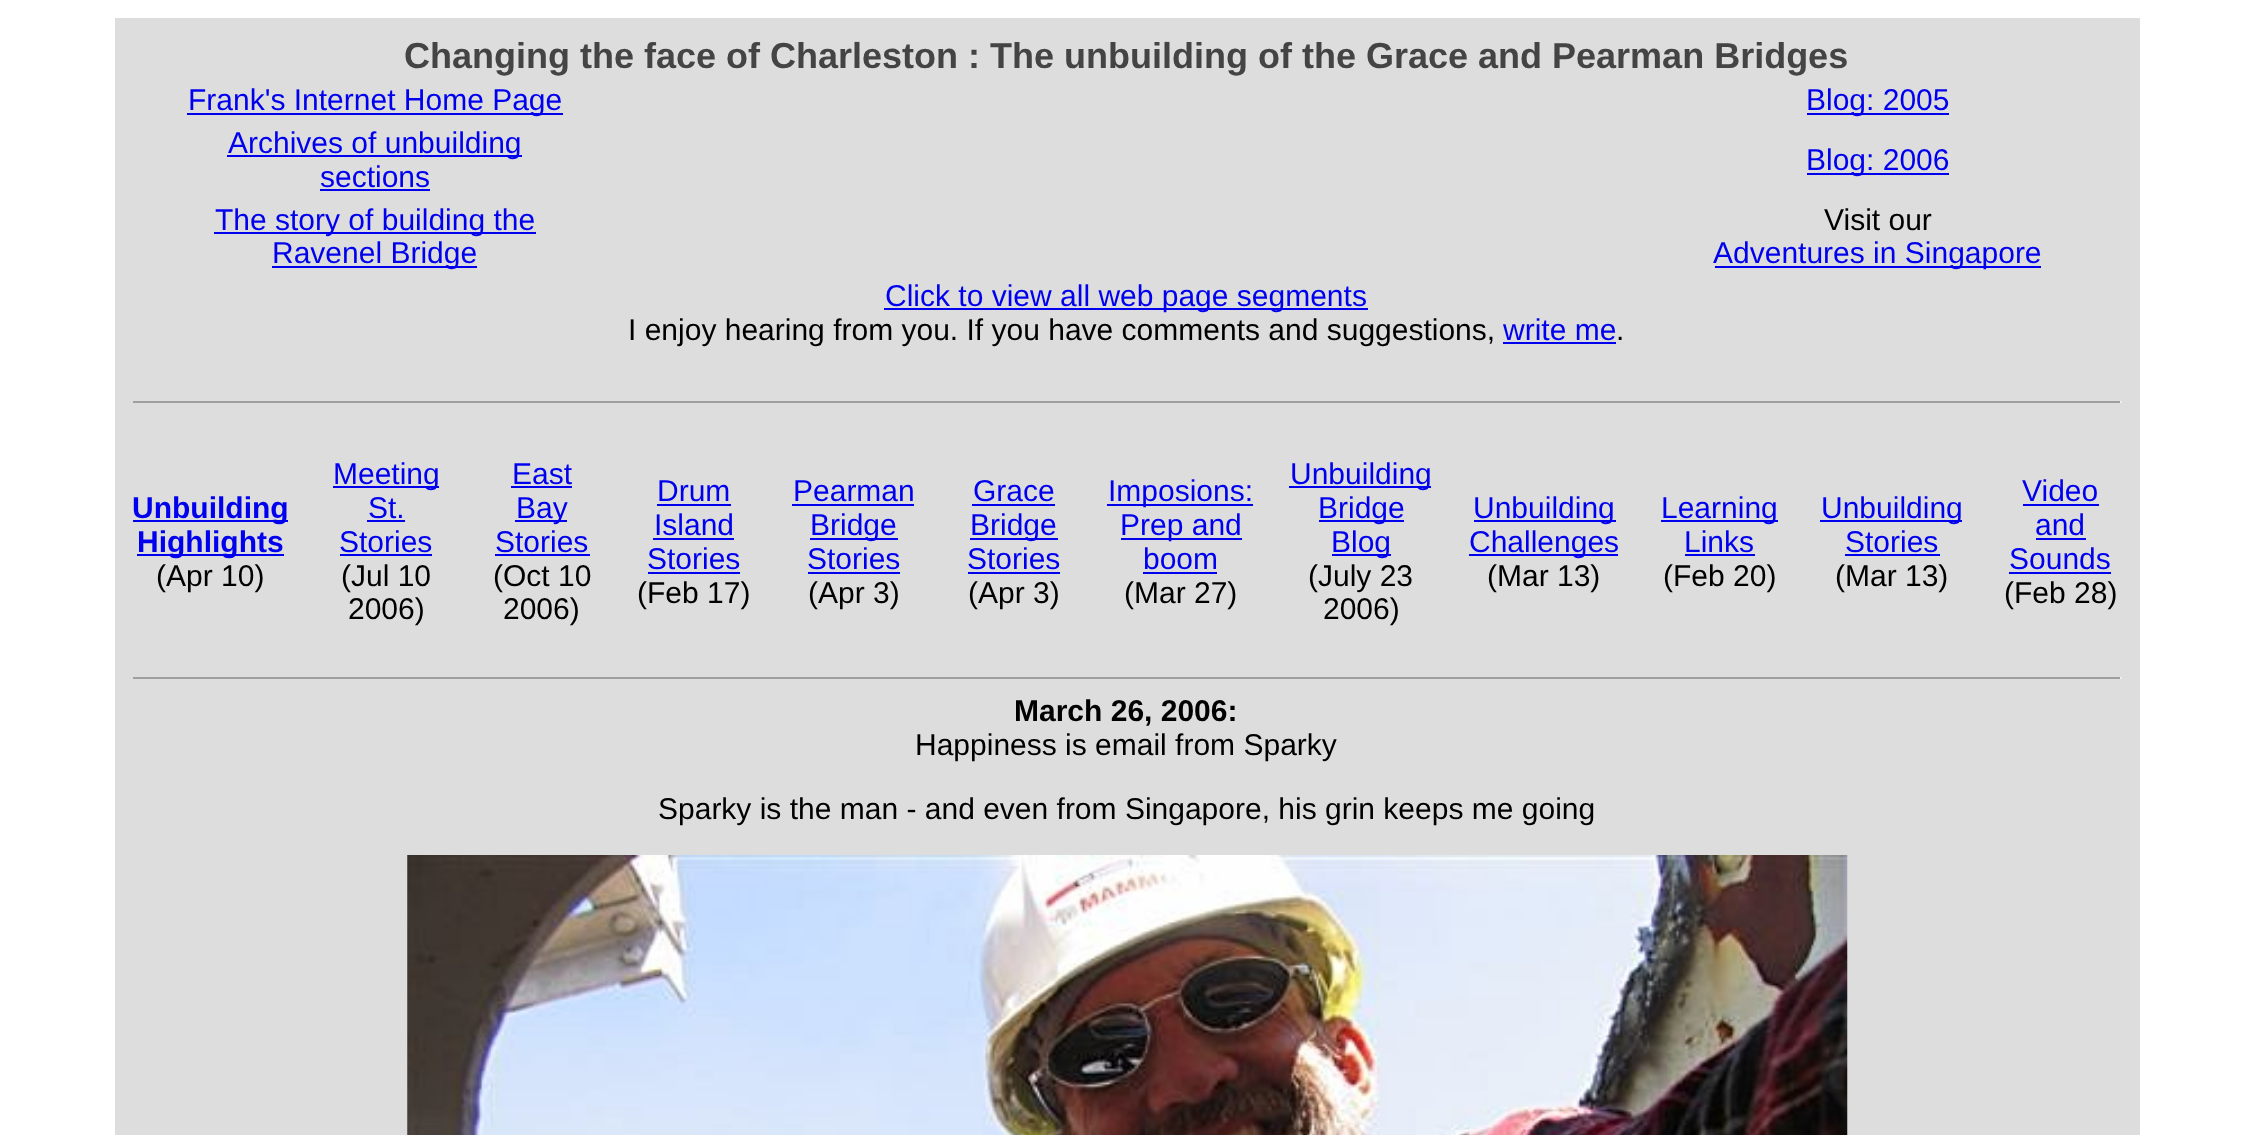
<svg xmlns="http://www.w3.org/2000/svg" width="2252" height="1135">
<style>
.a{font:bold 36px Liberation Sans;fill:#444}
.b{font:30px Liberation Sans;fill:#00e}
.c{font:30px Liberation Sans;fill:#000}
.d{font:bold 30px Liberation Sans;fill:#00e}
.e{font:bold 30px Liberation Sans;fill:#000}
</style>
<rect width="100%" height="100%" fill="#fff"/>
<path fill="#ddd" d="M115 18h2025v1117H115z"/>
<path fill="#00e" d="M187 113h376v2H187z"/>
<path fill="#00e" d="M1807 113h142v2H1807z"/>
<path fill="#00e" d="M227 155h295v2H227z"/>
<path fill="#00e" d="M320 189h110v2H320z"/>
<path fill="#00e" d="M1807 173h142v2H1807z"/>
<path fill="#00e" d="M214 232h322v2H214z"/>
<path fill="#00e" d="M272 266h205v2H272z"/>
<path fill="#00e" d="M1715 266h326v2H1715z"/>
<path fill="#00e" d="M884 308h484v2H884z"/>
<path fill="#00e" d="M1503 342h113v2H1503z"/>
<path fill="#9f9f9f" d="M133 401h1989v2H133z"/>
<path fill="#eee" d="M2120 401h2v2H2120z"/>
<path fill="#00e" d="M133 520h155v2H133z"/>
<path fill="#00e" d="M137 554h147v2H137z"/>
<path fill="#00e" d="M333 486h106v2H333z"/>
<path fill="#00e" d="M367 520h38v2H367z"/>
<path fill="#00e" d="M340 554h92v2H340z"/>
<path fill="#00e" d="M511 486h61v2H511z"/>
<path fill="#00e" d="M515 520h52v2H515z"/>
<path fill="#00e" d="M495 554h95v2H495z"/>
<path fill="#00e" d="M657 504h74v2H657z"/>
<path fill="#00e" d="M653 538h81v2H653z"/>
<path fill="#00e" d="M648 572h92v2H648z"/>
<path fill="#00e" d="M792 504h122v2H792z"/>
<path fill="#00e" d="M810 538h88v2H810z"/>
<path fill="#00e" d="M808 572h92v2H808z"/>
<path fill="#00e" d="M972 504h83v2H972z"/>
<path fill="#00e" d="M970 538h88v2H970z"/>
<path fill="#00e" d="M968 572h92v2H968z"/>
<path fill="#00e" d="M1107 504h146v2H1107z"/>
<path fill="#00e" d="M1121 538h121v2H1121z"/>
<path fill="#00e" d="M1143 572h74v2H1143z"/>
<path fill="#00e" d="M1289 486h142v2H1289z"/>
<path fill="#00e" d="M1319 520h85v2H1319z"/>
<path fill="#00e" d="M1332 554h59v2H1332z"/>
<path fill="#00e" d="M1474 520h142v2H1474z"/>
<path fill="#00e" d="M1469 554h149v2H1469z"/>
<path fill="#00e" d="M1661 520h117v2H1661z"/>
<path fill="#00e" d="M1685 554h70v2H1685z"/>
<path fill="#00e" d="M1820 520h142v2H1820z"/>
<path fill="#00e" d="M1845 554h95v2H1845z"/>
<path fill="#00e" d="M2023 504h76v2H2023z"/>
<path fill="#00e" d="M2036 538h50v2H2036z"/>
<path fill="#00e" d="M2009 572h102v2H2009z"/>
<path fill="#9f9f9f" d="M133 677h1989v2H133z"/>
<path fill="#eee" d="M2120 677h2v2H2120z"/>
<image href="1.png" x="407" y="855" width="1441" height="280"/>
<text class="a" x="404" y="68">Changing the face of Charleston : The unbuilding of the Grace and Pearman Bridges</text>
<text class="b" x="188" y="110">Frank's Internet Home Page</text>
<text class="b" x="1806" y="110">Blog: 2005</text>
<text class="b" x="228" y="153">Archives of unbuilding</text>
<text class="b" x="320" y="187">sections</text>
<text class="b" x="1806" y="170">Blog: 2006</text>
<text class="b" x="215" y="230">The story of building the</text>
<text class="b" x="272" y="263">Ravenel Bridge</text>
<text class="c" x="1824" y="230">Visit our</text>
<text class="b" x="1713" y="263">Adventures in Singapore</text>
<text class="b" x="885" y="306">Click to view all web page segments</text>
<text class="c" x="628" y="340">I enjoy hearing from you. If you have comments and suggestions,</text>
<text class="b" x="1503" y="340">write me</text>
<text class="c" x="1616" y="340">.</text>
<text class="d" x="132" y="518">Unbuilding</text>
<text class="d" x="137" y="552">Highlights</text>
<text class="c" x="156" y="586">(Apr 10)</text>
<text class="b" x="333" y="484">Meeting</text>
<text class="b" x="368" y="518">St.</text>
<text class="b" x="339" y="552">Stories</text>
<text class="c" x="341" y="586">(Jul 10</text>
<text class="c" x="348" y="619">2006)</text>
<text class="b" x="512" y="484">East</text>
<text class="b" x="516" y="518">Bay</text>
<text class="b" x="495" y="552">Stories</text>
<text class="c" x="493" y="586">(Oct 10</text>
<text class="c" x="503" y="619">2006)</text>
<text class="b" x="657" y="501">Drum</text>
<text class="b" x="654" y="535">Island</text>
<text class="b" x="647" y="569">Stories</text>
<text class="c" x="637" y="603">(Feb 17)</text>
<text class="b" x="793" y="501">Pearman</text>
<text class="b" x="810" y="535">Bridge</text>
<text class="b" x="807" y="569">Stories</text>
<text class="c" x="808" y="603">(Apr 3)</text>
<text class="b" x="973" y="501">Grace</text>
<text class="b" x="970" y="535">Bridge</text>
<text class="b" x="967" y="569">Stories</text>
<text class="c" x="968" y="603">(Apr 3)</text>
<text class="b" x="1108" y="501">Imposions:</text>
<text class="b" x="1120" y="535">Prep and</text>
<text class="b" x="1143" y="569">boom</text>
<text class="c" x="1124" y="603">(Mar 27)</text>
<text class="b" x="1290" y="484">Unbuilding</text>
<text class="b" x="1318" y="518">Bridge</text>
<text class="b" x="1331" y="552">Blog</text>
<text class="c" x="1308" y="586">(July 23</text>
<text class="c" x="1323" y="619">2006)</text>
<text class="b" x="1473" y="518">Unbuilding</text>
<text class="b" x="1469" y="552">Challenges</text>
<text class="c" x="1487" y="586">(Mar 13)</text>
<text class="b" x="1661" y="518">Learning</text>
<text class="b" x="1684" y="552">Links</text>
<text class="c" x="1663" y="586">(Feb 20)</text>
<text class="b" x="1821" y="518">Unbuilding</text>
<text class="b" x="1845" y="552">Stories</text>
<text class="c" x="1835" y="586">(Mar 13)</text>
<text class="b" x="2022" y="501">Video</text>
<text class="b" x="2035" y="535">and</text>
<text class="b" x="2009" y="569">Sounds</text>
<text class="c" x="2004" y="603">(Feb 28)</text>
<text class="e" x="1014" y="721">March 26, 2006:</text>
<text class="c" x="915" y="755">Happiness is email from Sparky</text>
<text class="c" x="658" y="819">Sparky is the man - and even from Singapore, his grin keeps me going</text>
</svg>
